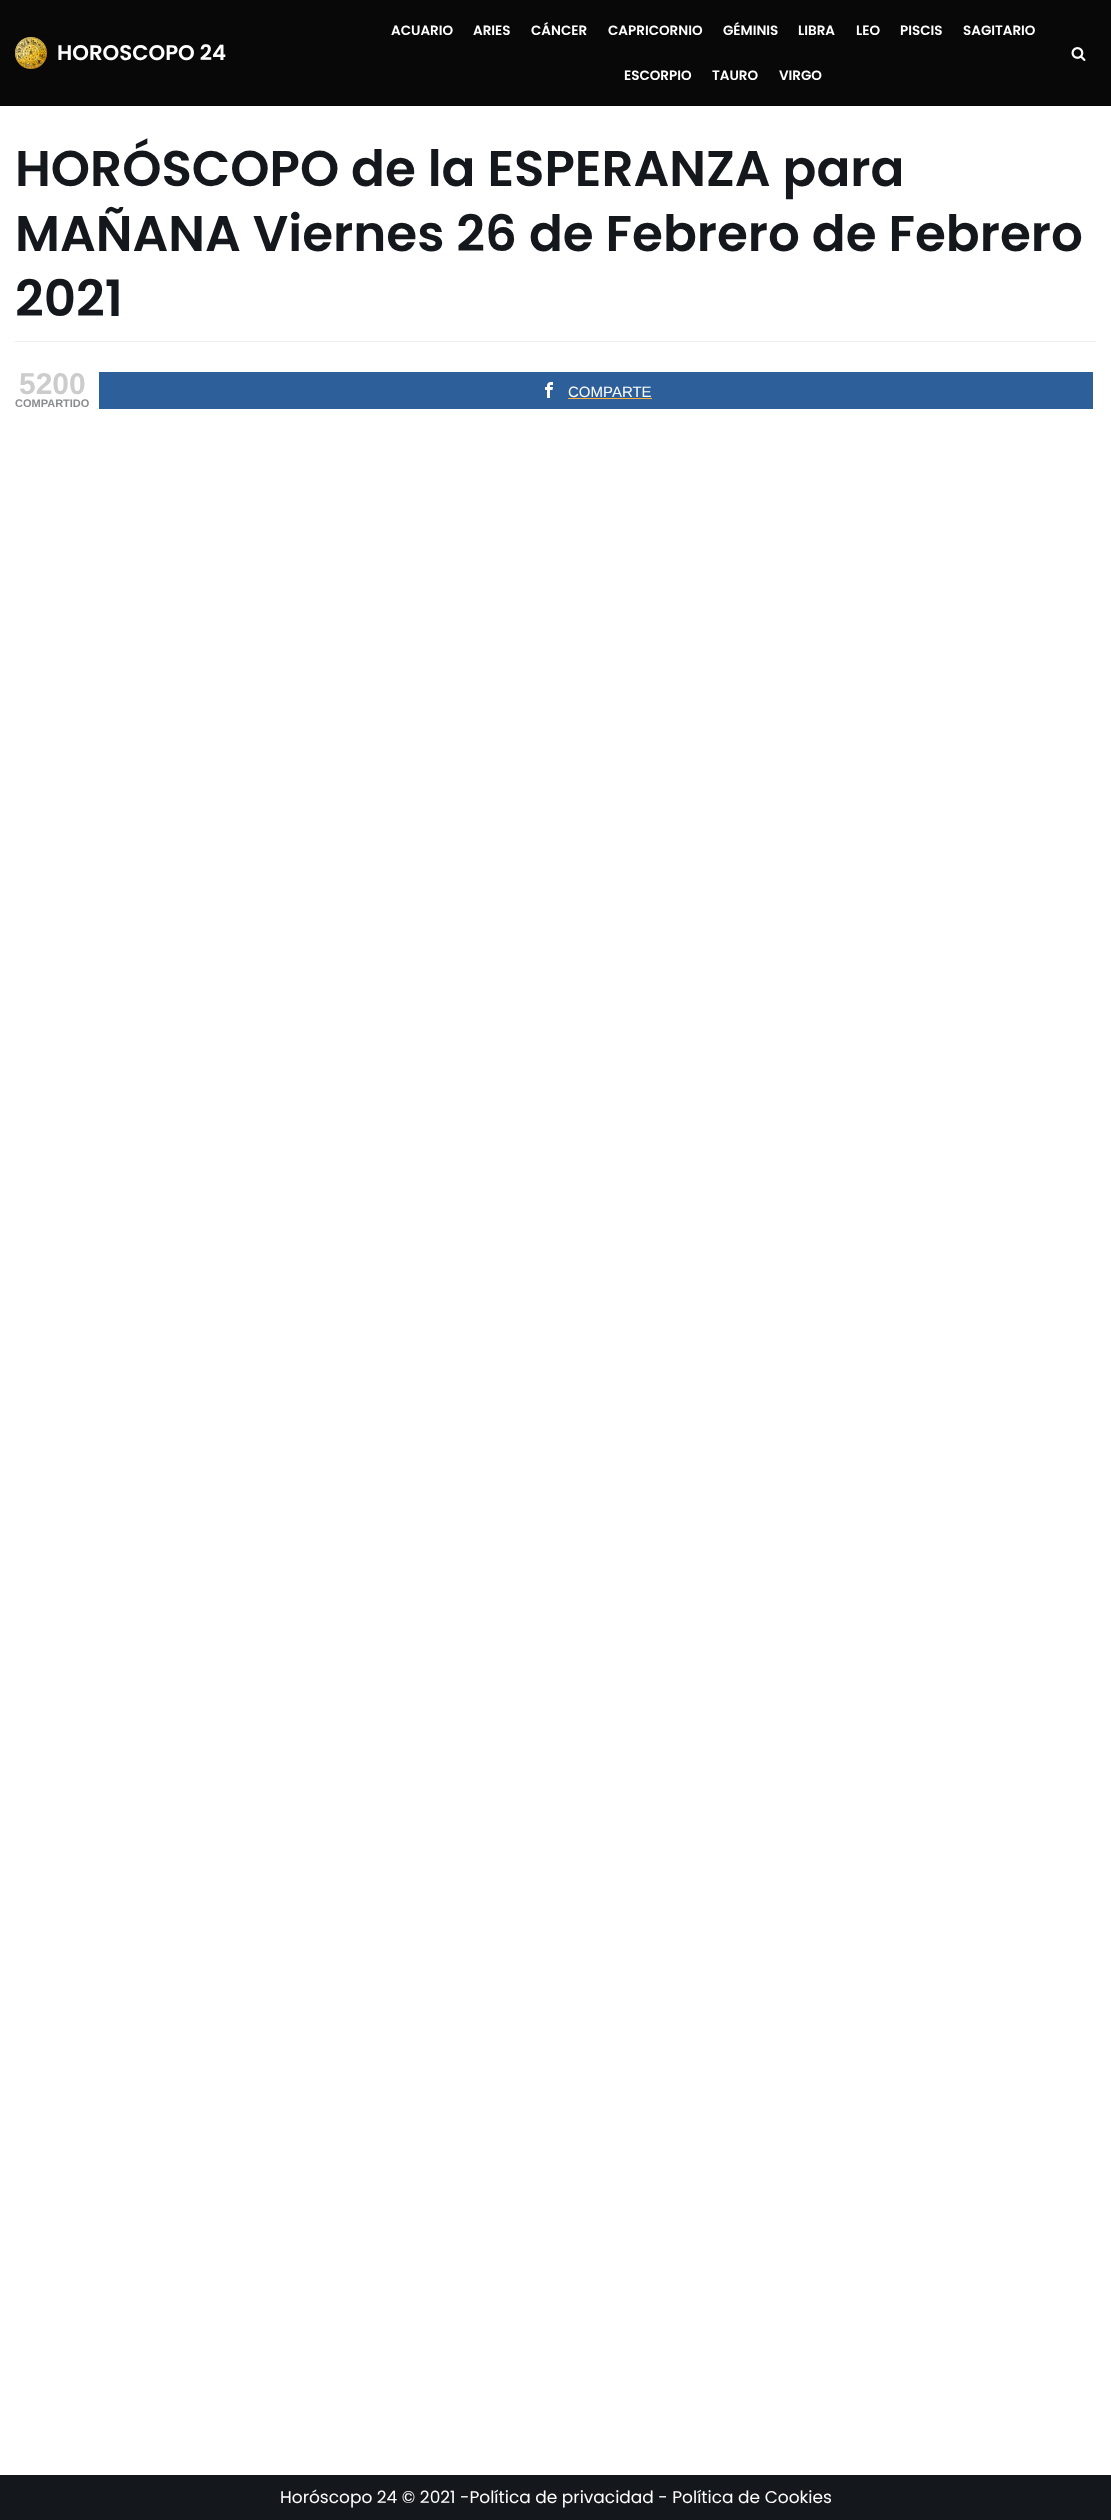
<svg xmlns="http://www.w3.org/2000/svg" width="1111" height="2520">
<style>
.a{font:600 21.25px Poppins;fill:#fff}
.b{font:600 13.5px Poppins;fill:#fff}
.c{font:600 50px Poppins;fill:#14171c}
.d{font:bold 30px Liberation Sans;fill:#ccc}
.e{font:bold 11px Liberation Sans;fill:#8a8c8e}
.f{font:15px Liberation Sans;fill:#fff}
.g{font:17px Poppins;fill:#fff}
</style>
<rect width="100%" height="100%" fill="#fff"/>
<path fill="#090808" d="M0 0h1111v106H0z"/>
<image href="1.png" x="15" y="37" width="32" height="32"/>
<image href="2.png" x="1071" y="47" width="15" height="14"/>
<path fill="#ededed" d="M15 341h1081v1H15z"/>
<path fill="#2d5f9a" d="M99 372h994v37H99z"/>
<image href="3.png" x="545" y="382" width="8" height="16"/>
<path fill="#fcaf3b" d="M568 398h84v1H568z"/>
<path fill="#14171c" d="M0 2475h1111v45H0z"/>
<text class="a" x="57" y="60">HOROSCOPO 24</text>
<text class="b" x="391" y="35">ACUARIO</text>
<text class="b" x="473" y="35">ARIES</text>
<text class="b" x="531" y="35">CÁNCER</text>
<text class="b" x="608" y="35">CAPRICORNIO</text>
<text class="b" x="723" y="35">GÉMINIS</text>
<text class="b" x="798" y="35">LIBRA</text>
<text class="b" x="856" y="35">LEO</text>
<text class="b" x="900" y="35">PISCIS</text>
<text class="b" x="963" y="35">SAGITARIO</text>
<text class="b" x="624" y="80">ESCORPIO</text>
<text class="b" x="712" y="80">TAURO</text>
<text class="b" x="779" y="80">VIRGO</text>
<text class="c" x="15" y="186">HORÓSCOPO de la ESPERANZA para</text>
<text class="c" x="15" y="251">MAÑANA Viernes 26 de Febrero de Febrero</text>
<text class="c" x="15" y="316">2021</text>
<text class="d" x="19" y="394">5200</text>
<text class="e" x="15" y="407">COMPARTIDO</text>
<text class="f" x="568" y="397">COMPARTE</text>
<text class="g" x="280" y="2503">Horóscopo 24 © 2021 -Política de privacidad - Política de Cookies</text>
</svg>
